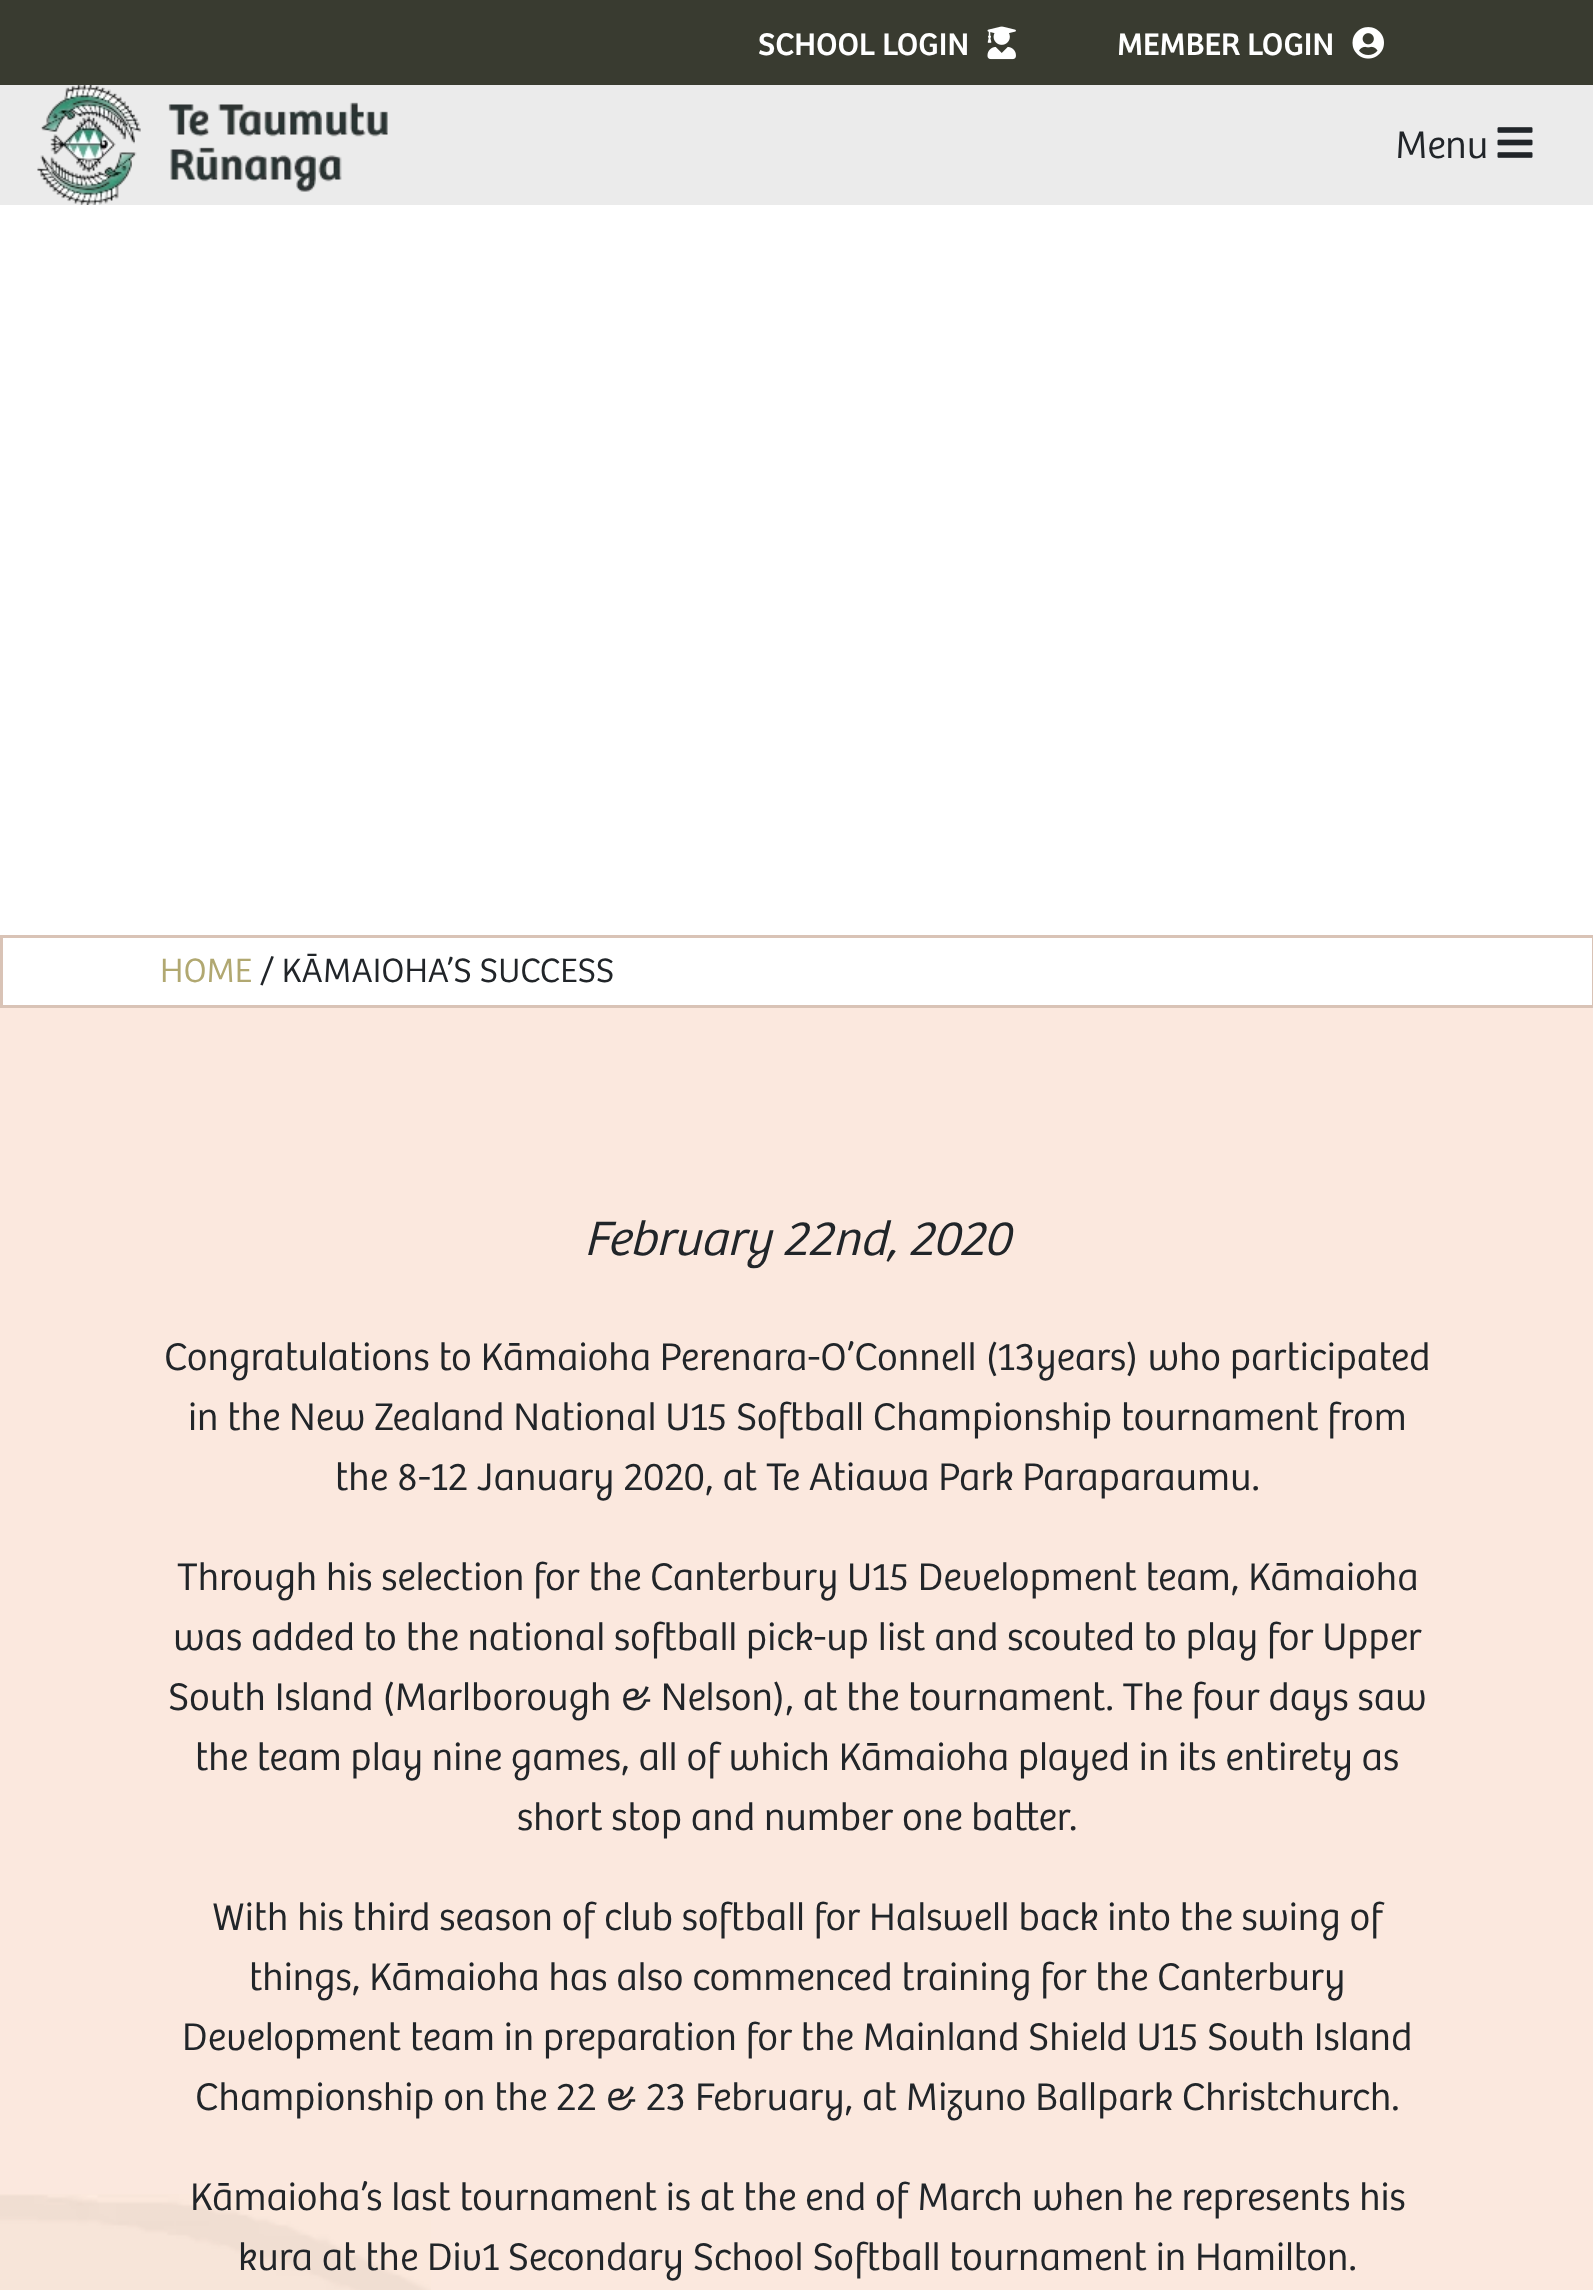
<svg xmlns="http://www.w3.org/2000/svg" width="1593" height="2290">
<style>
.a{font:32.5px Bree;fill:#fff}
.b{font:300 40px Bree;fill:#212529}
.c{font:300 35px Bree;fill:#b1a871}
.d{font:300 35px Bree;fill:#212529}
.e{font:italic 300 50px Bree;fill:#212529}
</style>
<rect width="100%" height="100%" fill="#fff"/>
<path fill="#393b30" d="M0 0h1593v85H0z"/>
<image href="1.png" x="987" y="26" width="29" height="34"/>
<image href="2.png" x="1352" y="27" width="32" height="32"/>
<path fill="#ebebeb" d="M0 85h1593v120H0z"/>
<image href="3.png" x="37" y="85" width="351" height="120"/>
<image href="4.png" x="1497" y="127" width="36" height="31"/>
<path fill="none" stroke="#d9c3b6" stroke-width="3" d="M1.5 936.5h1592v70H1.5z"/>
<path fill="#fbe8de" d="M0 1008h1593v1282H0z"/>
<image href="5.png" x="0" y="2194" width="431" height="96"/>
<text class="a" x="758" y="55">SCHOOL LOGIN</text>
<text class="a" x="1117" y="55">MEMBER LOGIN</text>
<text class="b" x="1395" y="158">Menu</text>
<text class="c" x="160" y="982">HOME</text>
<text class="d" x="260" y="982">/ KĀMAIOHA’S SUCCESS</text>
<text class="e" x="584" y="1255">February 22nd, 2020</text>
<text class="b" x="164" y="1370">Congratulations to Kāmaioha Perenara-O’Connell (13years) who participated</text>
<text class="b" x="188" y="1430">in the New Zealand National U15 Softball Championship tournament from</text>
<text class="b" x="335" y="1490">the 8-12 January 2020, at Te Atiawa Park Paraparaumu.</text>
<text class="b" x="177" y="1590">Through his selection for the Canterbury U15 Development team, Kāmaioha</text>
<text class="b" x="173" y="1650">was added to the national softball pick-up list and scouted to play for Upper</text>
<text class="b" x="168" y="1710">South Island (Marlborough &amp; Nelson), at the tournament. The four days saw</text>
<text class="b" x="195" y="1770">the team play nine games, all of which Kāmaioha played in its entirety as</text>
<text class="b" x="517" y="1830">short stop and number one batter.</text>
<text class="b" x="212" y="1930">With his third season of club softball for Halswell back into the swing of</text>
<text class="b" x="249" y="1990">things, Kāmaioha has also commenced training for the Canterbury</text>
<text class="b" x="182" y="2050">Development team in preparation for the Mainland Shield U15 South Island</text>
<text class="b" x="195" y="2110">Championship on the 22 &amp; 23 February, at Mizuno Ballpark Christchurch.</text>
<text class="b" x="190" y="2210">Kāmaioha’s last tournament is at the end of March when he represents his</text>
<text class="b" x="238" y="2270">kura at the Div1 Secondary School Softball tournament in Hamilton.</text>
</svg>
